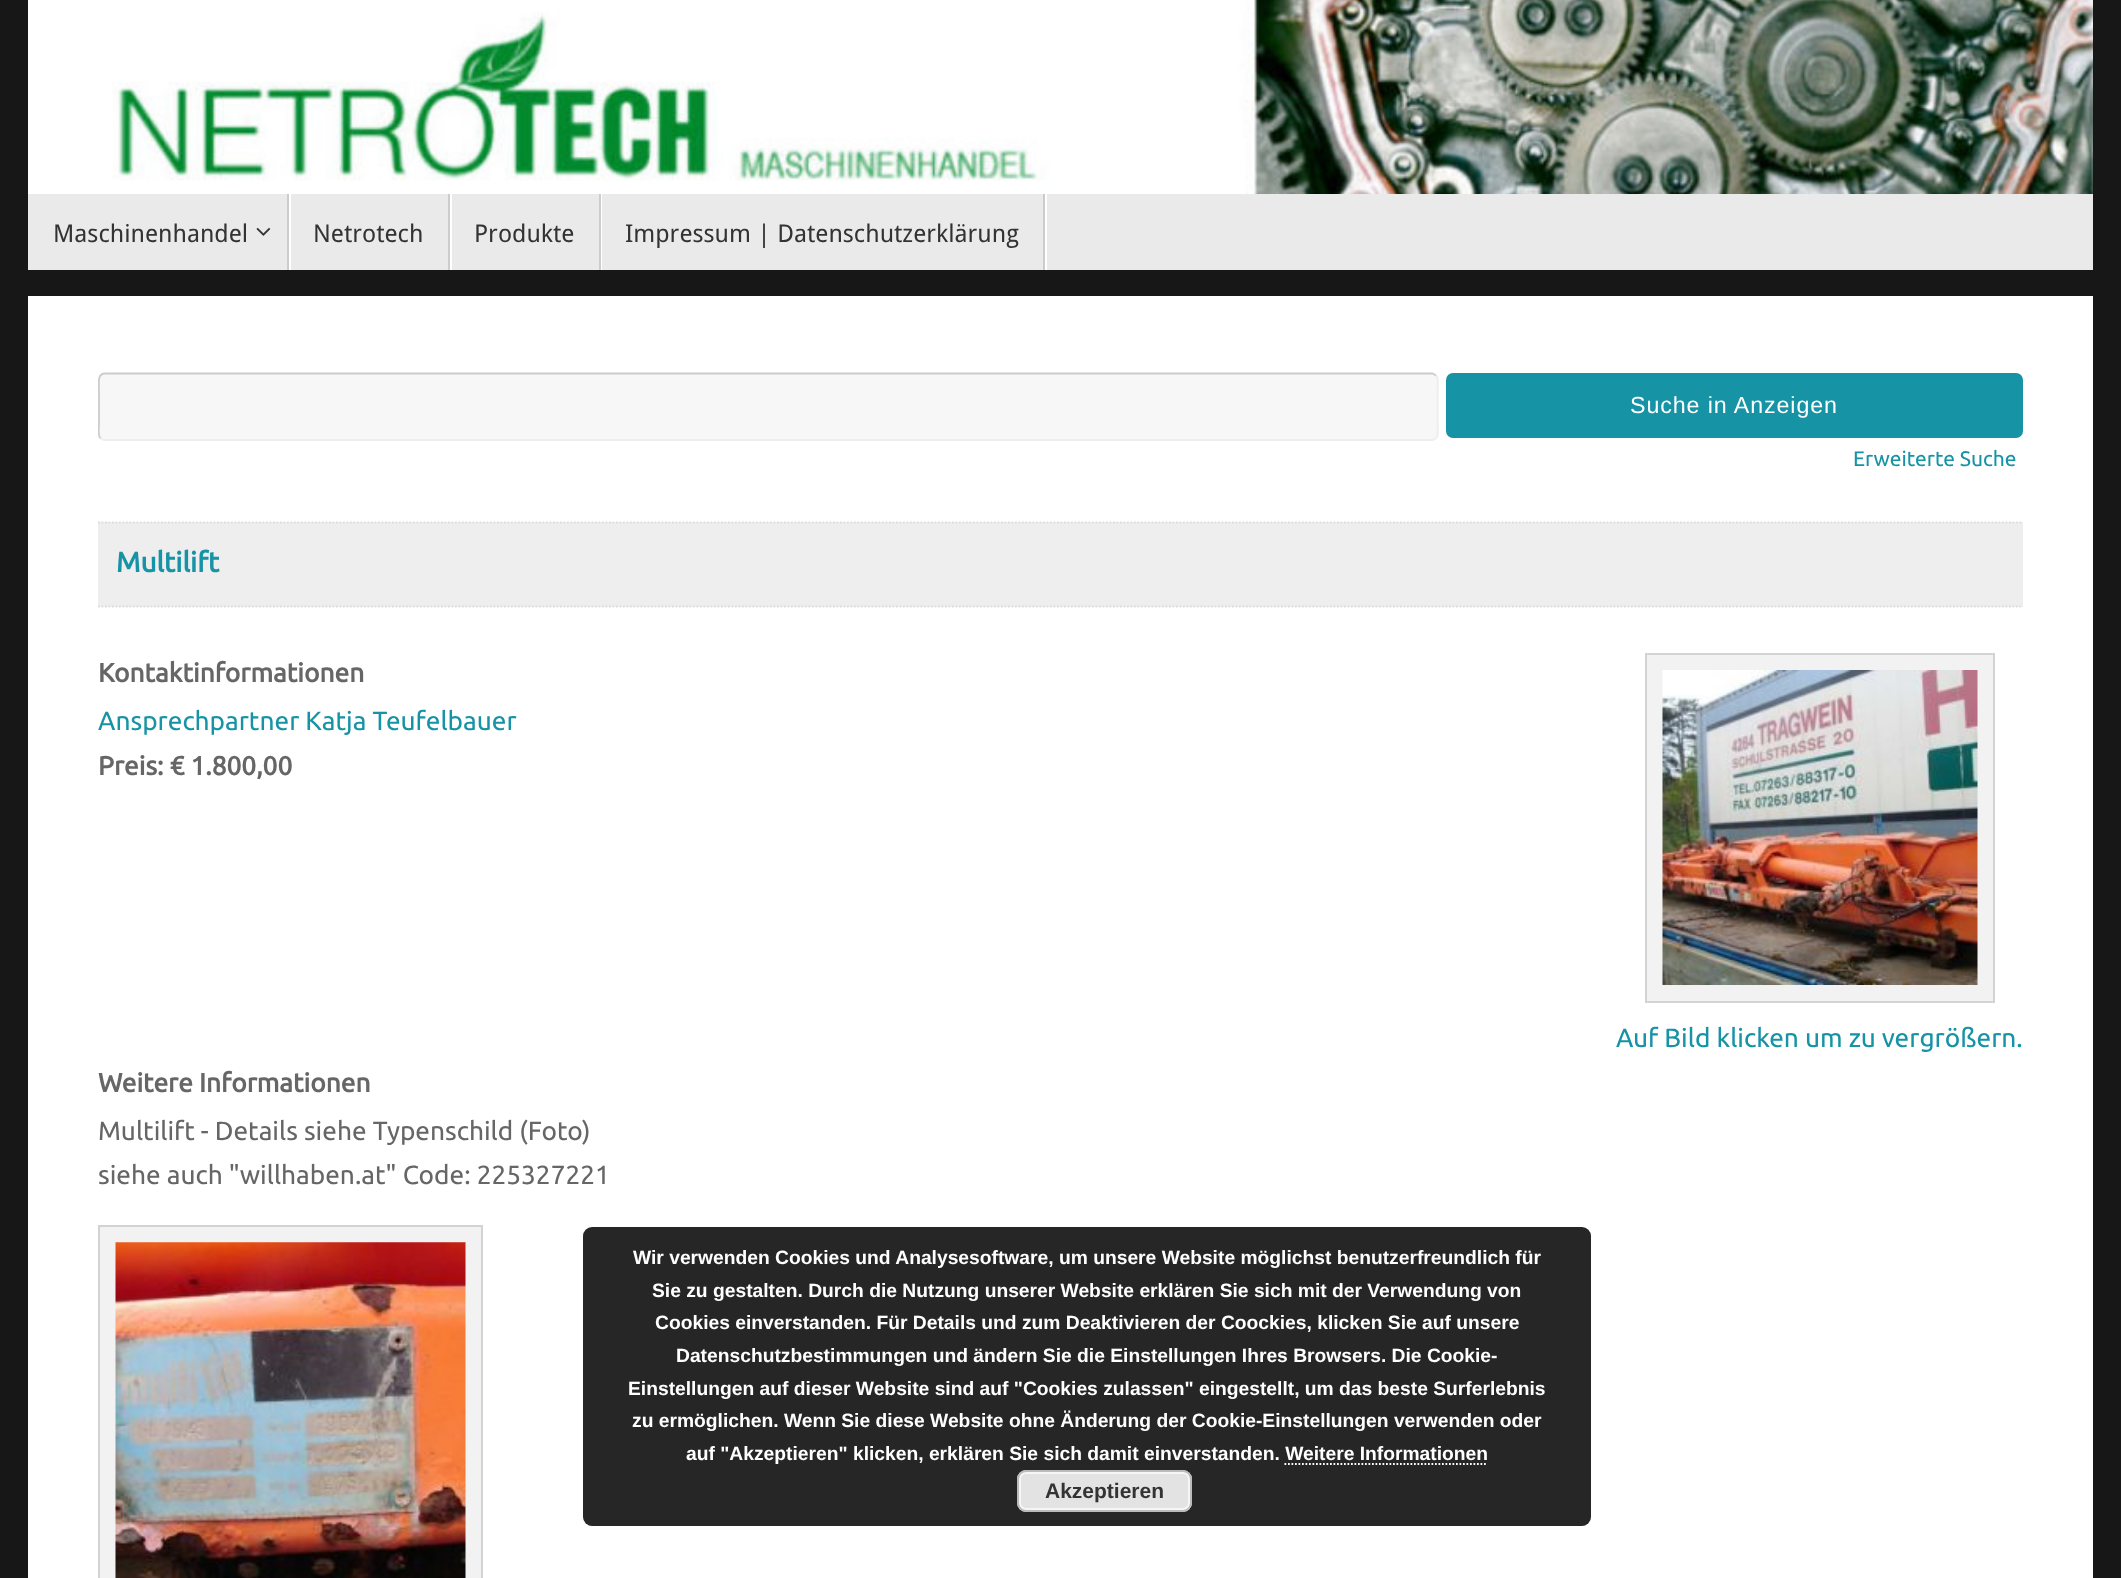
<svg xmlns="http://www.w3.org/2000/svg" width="2121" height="1578">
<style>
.a{font:24.5px Droid Sans;fill:#333}
.b{font:23.25px Liberation Sans;letter-spacing:0.9px;fill:#fff}
.c{font:21px Ubuntu;fill:#1693a5}
.d{font:bold 28px Ubuntu;fill:#1693a5}
.e{font:bold 26.25px Ubuntu;fill:#666}
.f{font:26.25px Ubuntu;fill:#1693a5}
.g{font:26.25px Ubuntu;fill:#666}
.h{font:bold 19.25px Liberation Sans;fill:#fff}
.i{font:bold 21px Liberation Sans;fill:#333}
</style>
<defs>
<clipPath id="clip1"><path d="M98 340h1925v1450H98z"/></clipPath>
</defs>
<rect width="100%" height="100%" fill="#171717"/>
<image href="1.png" x="28" y="0" width="2065" height="194"/>
<path fill="#eaeaea" d="M28 194h2065v76H28z"/>
<path fill="#fff" d="M30 194h259v76h-259h261v-76z"/>
<path fill="#ccc" d="M287 194h2v76H287z"/>
<image href="2.png" x="256" y="227" width="15" height="9"/>
<path fill="#fff" d="M291 194h159v76h-159h161v-76z"/>
<path fill="#ccc" d="M448 194h2v76H448z"/>
<path fill="#fff" d="M452 194h148v76h-148h150v-76z"/>
<path fill="#ccc" d="M599 194h2v76H599z"/>
<path fill="#fff" d="M602 194h443v76h-443h445v-76z"/>
<path fill="#ccc" d="M1043 194h2v76H1043z"/>
<path fill="#fff" d="M28 296h2065v1282H28z"/>
<rect fill="#f7f7f7" x="98" y="373" width="1341" height="68" rx="7"/>
<path fill="none" stroke="#eee" stroke-width="1.8" d="M1436 375.5c3 3 1.5 10 1.5 13.5v36c0 4.5 2 15-6 15h-1327.5l-3.5-1.5"/>
<g clip-path="url(#clip1)">
<path fill="none" stroke="#ccc" stroke-width="1.8" d="M100.5 438.5c-3-3.5-1.5-10.5-1.5-13.5v-36c0-5-2-15.5 6-15.5h1327.5l3.5 2"/>
</g>
<rect fill="#1693a5" x="1446" y="373" width="577" height="65" rx="7"/>
<path fill="#eee" d="M98 522h1925v85H98z"/>
<path fill="none" stroke="#ddd" stroke-width="1.8" stroke-dasharray="1.75 1.75" d="M98 522.5h1925"/>
<path fill="none" stroke="#ddd" stroke-width="1.8" stroke-dasharray="1.75 1.75" d="M98 606.5h1925"/>
<path fill="#f2f2f2" stroke="#d3d3d3" stroke-width="2" d="M1646 654h348v348H1646z"/>
<image href="3.png" x="1662" y="670" width="316" height="315"/>
<path fill="#f2f2f2" stroke="#d3d3d3" stroke-width="2" d="M99 1226h383v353H99z"/>
<image href="4.png" x="115" y="1242" width="351" height="336"/>
<rect fill="#262626" x="583" y="1227" width="1008" height="299" rx="9"/>
<path fill="none" stroke="#fff" stroke-width="1.8" stroke-dasharray="1.75 1.75" d="M1284.5 1464h203"/>
<rect fill="#e3e3e3" x="1017" y="1470" width="175" height="42" rx="9"/>
<rect fill="none" stroke="#f6f6f6" stroke-width="2" x="1020" y="1473" width="169" height="36" rx="6"/>
<rect fill="none" stroke="#bbb" stroke-width="2" x="1018" y="1471" width="173" height="40" rx="8"/>
<text class="a" x="53" y="242">Maschinenhandel</text>
<text class="a" x="313" y="242">Netrotech</text>
<text class="a" x="474" y="242">Produkte</text>
<text class="a" x="625" y="242">Impressum | Datenschutzerklärung</text>
<text class="b" x="1630" y="413">Suche in Anzeigen</text>
<text class="c" x="1853" y="466">Erweiterte Suche</text>
<text class="d" x="116" y="572">Multilift</text>
<text class="e" x="98" y="682">Kontaktinformationen</text>
<text class="f" x="98" y="730">Ansprechpartner Katja Teufelbauer</text>
<text class="f" x="1616" y="1047">Auf Bild klicken um zu vergrößern.</text>
<text class="e" x="98" y="775">Preis: € 1.800,00</text>
<text class="e" x="98" y="1092">Weitere Informationen</text>
<text class="g" x="98" y="1140">Multilift - Details siehe Typenschild (Foto)</text>
<text class="g" x="98" y="1184">siehe auch "willhaben.at" Code: 225327221</text>
<text class="h" x="633" y="1264">Wir verwenden Cookies und Analysesoftware, um unsere Website möglichst benutzerfreundlich für</text>
<text class="h" x="652" y="1297">Sie zu gestalten. Durch die Nutzung unserer Website erklären Sie sich mit der Verwendung von</text>
<text class="h" x="655" y="1329">Cookies einverstanden. Für Details und zum Deaktivieren der Coockies, klicken Sie auf unsere</text>
<text class="h" x="676" y="1362">Datenschutzbestimmungen und ändern Sie die Einstellungen Ihres Browsers. Die Cookie-</text>
<text class="h" x="628" y="1395">Einstellungen auf dieser Website sind auf "Cookies zulassen" eingestellt, um das beste Surferlebnis</text>
<text class="h" x="632" y="1427">zu ermöglichen. Wenn Sie diese Website ohne Änderung der Cookie-Einstellungen verwenden oder</text>
<text class="h" x="686" y="1460">auf "Akzeptieren" klicken, erklären Sie sich damit einverstanden. Weitere Informationen</text>
<text class="i" x="1045" y="1498">Akzeptieren</text>
</svg>
